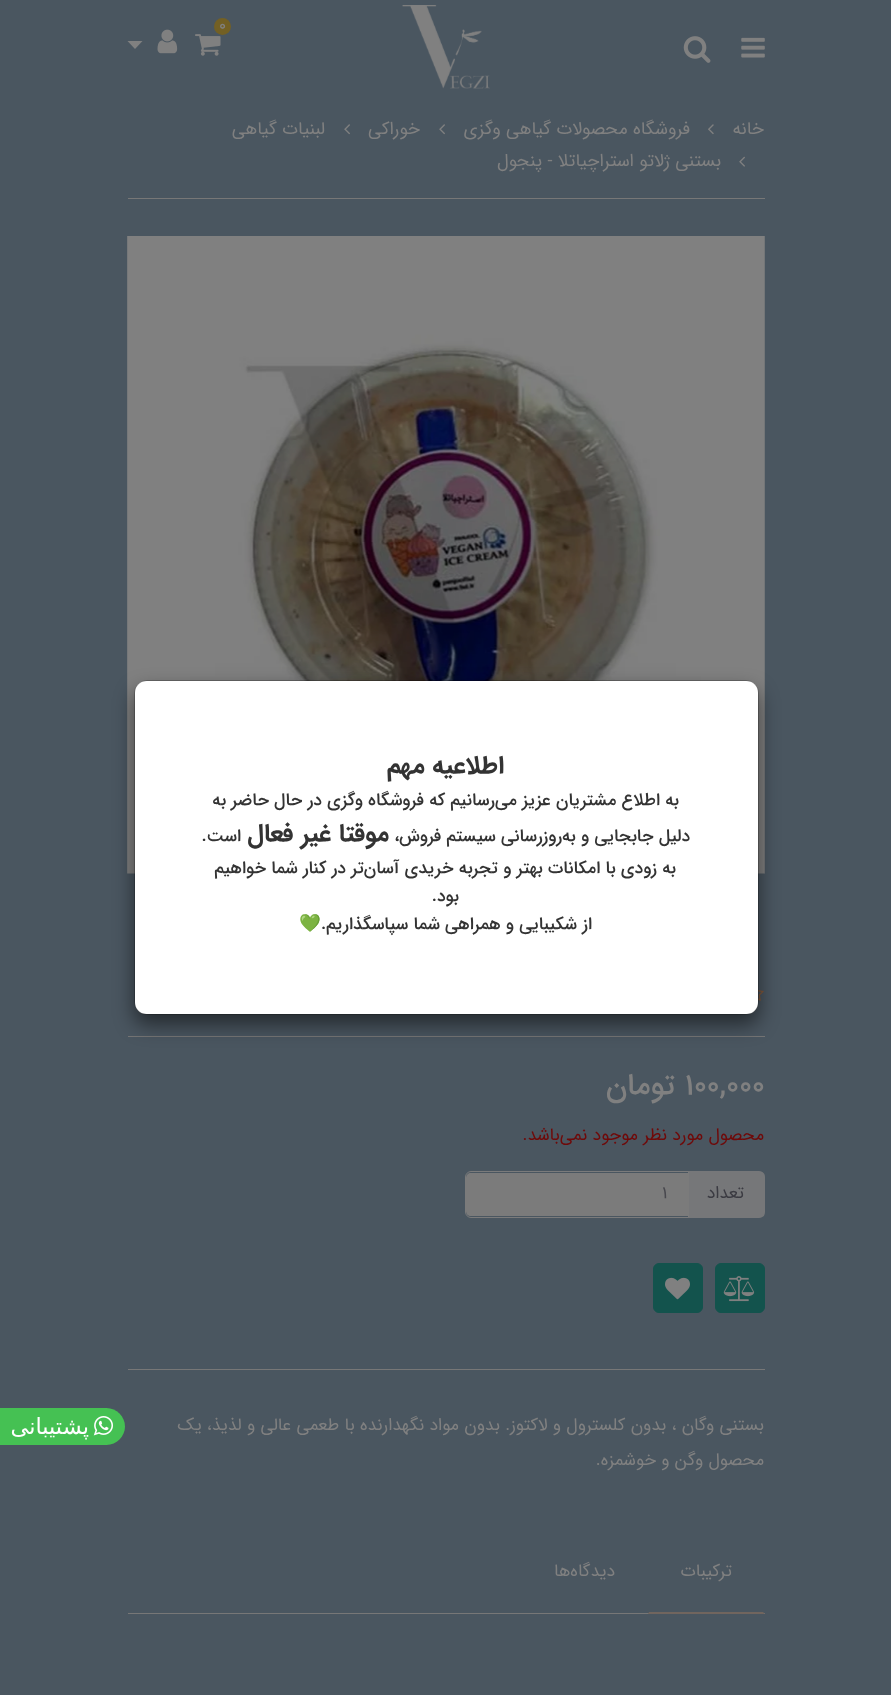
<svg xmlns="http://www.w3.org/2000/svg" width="891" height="1695">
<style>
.a{font:500 16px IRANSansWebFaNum;fill:#808080}
.b{font:18px IRANSansWebFaNum;direction:rtl;fill:#808080}
.c{font:500 30px IRANSansWebFaNum;fill:#808080}
.d{font:500 30px IRANSansWebFaNum;direction:rtl;fill:#808080}
.e{font:17.5px IRANSansWebFaNum;direction:rtl;fill:#6f0909}
.f{font:17.5px IRANSansWebFaNum;direction:rtl;fill:#3b3b42}
.g{font:17.5px IRANSansWebFaNum;fill:#48484e}
.h{font:17.5px IRANSansWebFaNum;direction:rtl;fill:#808080}
.i{font:bold 25px IRANSansWebFaNum;direction:rtl;fill:#333}
.j{font:500 17.5px IRANSansWebFaNum;direction:rtl;fill:#333}
.k{font:17.5px Noto Color Emoji;direction:rtl;fill:#333}
.l{font:22.5px DejaVu Sans;direction:rtl;fill:#fff}
</style>
<rect width="100%" height="100%" fill="#4a5660"/>
<image href="1.png" x="402" y="5" width="88" height="84"/>
<image href="2.png" x="195" y="34" width="26" height="22"/>
<circle fill="#736024" cx="222.5" cy="26.5" r="8.5"/>
<image href="3.png" x="157" y="29" width="21" height="25"/>
<path fill="#808080" d="M127.5 41h15l-7.5 8z"/>
<image href="4.png" x="741" y="37" width="24" height="21"/>
<image href="5.png" x="683" y="36" width="28" height="27"/>
<path fill="#777" d="M128 198h637v1H128z"/>
<image href="6.png" x="708" y="124" width="6" height="11"/>
<image href="7.png" x="439" y="124" width="6" height="11"/>
<image href="7.png" x="344" y="124" width="6" height="11"/>
<image href="8.png" x="739" y="156" width="6" height="11"/>
<image href="10.png" x="764" y="236" width="1" height="638"/>
<image href="9.png" x="127" y="236" width="638" height="638"/>
<image href="11.png" x="758" y="989" width="6" height="12"/>
<path fill="#757575" d="M128 1036h637v1H128z"/>
<path fill="#767779" d="M688 1171h71c3.5 0 6 2.5 6 6v35c0 3.5-2.5 6-6 6h-71z"/>
<path fill="#7b7b7b" d="M471 1173h217v43h-217c-3 0-5-2-5-5v-33c0-3 2-5 5-5z"/>
<path fill="none" stroke="#7b7b7b" d="M471 1171.5h217.5v46h-217.5c-3 0-5.5-2.5-5.5-5.5v-35c0-3 2.5-5.5 5.5-5.5z"/>
<rect fill="#13534d" stroke="#13534d" x="715.5" y="1263.5" width="49" height="49" rx="5.5"/>
<image href="12.png" x="723" y="1276" width="32" height="26"/>
<rect fill="#13534d" stroke="#13534d" x="653.5" y="1263.5" width="49" height="49" rx="5.5"/>
<image href="13.png" x="665" y="1277" width="25" height="23"/>
<path fill="#777" d="M128 1369h637v1H128z"/>
<path fill="#777" d="M128 1613h637v1H128z"/>
<path fill="#71655e" d="M765 1614h-117l1-2h114z"/>
<rect fill="#00000080" filter="blur(10px)" x="134" y="690" width="625" height="335" rx="13"/>
<rect fill="#fff" x="135" y="681" width="623" height="333" rx="11"/>
<rect fill="none" stroke="#00000033" x="134.5" y="680.5" width="624" height="334" rx="12.5"/>
<path fill="#45c153" d="M0 1408h106.5c10 0 18.5 8.5 18.5 18.5c0 10-8.5 18.5-18.5 18.5h-106.5z"/>
<image href="14.png" x="93" y="1416" width="20" height="20"/>
<text class="a" x="219" y="30">0</text>
<text class="b" x="764" y="134">خانه</text>
<text class="b" x="690" y="134">فروشگاه محصولات گیاهی وگزی</text>
<text class="b" x="420" y="134">خوراکی</text>
<text class="b" x="325" y="134">لبنیات گیاهی</text>
<text class="b" x="721" y="166">بستنی ژلاتو استراچیاتلا - پنجول</text>
<text class="c" x="685" y="1094">100,000</text>
<text class="d" x="675" y="1094">تومان</text>
<text class="e" x="764" y="1140">محصول مورد نظر موجود نمی‌باشد.</text>
<text class="f" x="744" y="1198">تعداد</text>
<text class="g" x="662" y="1198">1</text>
<text class="h" x="764" y="1430">بستنی وگان ، بدون کلسترول و لاکتوز. بدون مواد نگهدارنده با طعمی عالی و لذیذ، یک</text>
<text class="h" x="764" y="1465">محصول وگن و خوشمزه.</text>
<text class="h" x="732" y="1576">ترکیبات</text>
<text class="h" x="615" y="1576">دیدگاه‌ها</text>
<text class="i" x="504" y="773">اطلاعیه مهم</text>
<text class="j" x="679" y="805">به اطلاع مشتریان عزیز می‌رسانیم که فروشگاه وگزی در حال حاضر به</text>
<text class="j" x="690" y="841">دلیل جابجایی و به‌روزرسانی سیستم فروش،</text>
<text class="i" x="389" y="841">موقتا غیر فعال</text>
<text class="j" x="241" y="841">است.</text>
<text class="j" x="676" y="873">به زودی با امکانات بهتر و تجربه خریدی آسان‌تر در کنار شما خواهیم</text>
<text class="j" x="459" y="901">بود.</text>
<text class="j" x="592" y="929">از شکیبایی و همراهی شما سپاسگذاریم.</text>
<text class="k" x="321" y="929">💚</text>
<text class="l" x="89" y="1434">پشتیبانی</text>
</svg>
